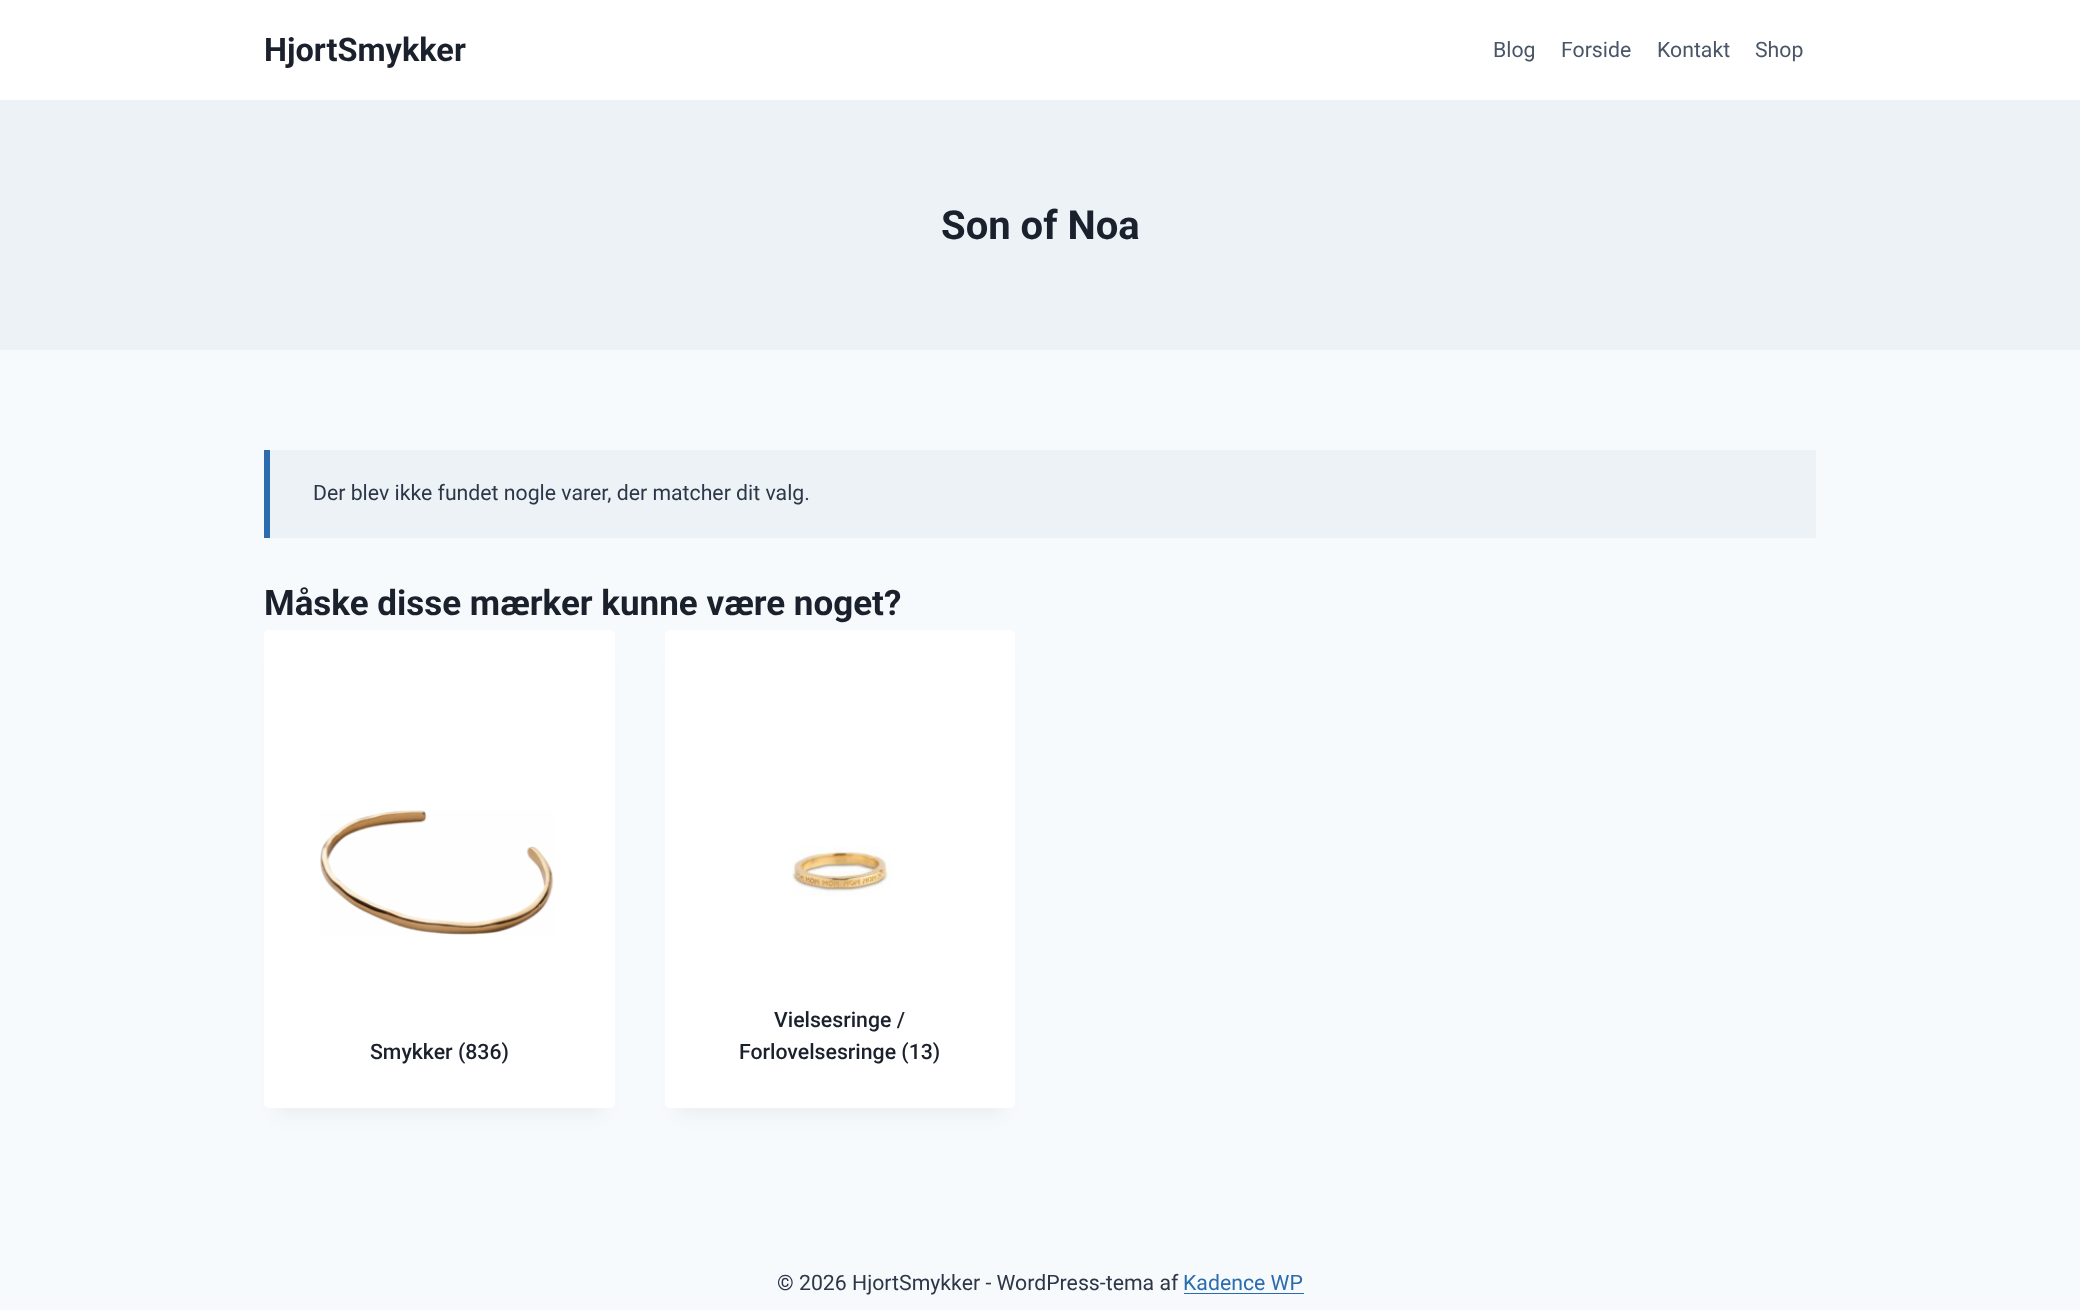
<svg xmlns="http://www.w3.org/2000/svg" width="2080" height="1310">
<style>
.a{font:bold 32.5px Roboto;fill:#1a202c}
.b{font:21.25px Roboto;fill:#4a5568}
.c{font:bold 40px Roboto;fill:#1a202c}
.d{font:21.25px Roboto;fill:#2d3748}
.e{font:bold 35px Roboto;fill:#1a202c}
.f{font:500 21.25px Roboto;fill:#1a202c}
.g{font:21.25px Roboto;fill:#2b6cb0}
</style>
<rect width="100%" height="100%" fill="#f7fafc"/>
<path fill="#fff" d="M0 0h2080v100H0z"/>
<path fill="#edf2f7" d="M0 100h2080v250H0z"/>
<path fill="#edf2f7" d="M270 450h1546v88H270z"/>
<path fill="#2b6cb0" d="M264 450h6v88H264z"/>
<path fill="#0000000d" filter="blur(9.5px)" d="M276 661h327v453H276z"/>
<rect fill="#fff" x="264" y="630" width="351" height="478" rx="5"/>
<image href="1.png" x="320" y="810" width="234" height="125"/>
<path fill="#0000000d" filter="blur(9.5px)" d="M678 661h325v453H678z"/>
<rect fill="#fff" x="665" y="630" width="350" height="478" rx="5"/>
<image href="2.png" x="792" y="846" width="100" height="50"/>
<path fill="#2b6cb0" d="M1184 1293h120v1H1184z"/>
<text class="a" x="264" y="61">HjortSmykker</text>
<text class="b" x="1493" y="57">Blog</text>
<text class="b" x="1561" y="57">Forside</text>
<text class="b" x="1657" y="57">Kontakt</text>
<text class="b" x="1755" y="57">Shop</text>
<text class="c" x="941" y="239">Son of Noa</text>
<text class="d" x="313" y="500">Der blev ikke fundet nogle varer, der matcher dit valg.</text>
<text class="e" x="264" y="615">Måske disse mærker kunne være noget?</text>
<text class="f" x="370" y="1059">Smykker (836)</text>
<text class="f" x="774" y="1027">Vielsesringe /</text>
<text class="f" x="739" y="1059">Forlovelsesringe (13)</text>
<text class="d" x="777" y="1290">© 2026 HjortSmykker - WordPress-tema af</text>
<text class="g" x="1183" y="1290">Kadence WP</text>
</svg>
